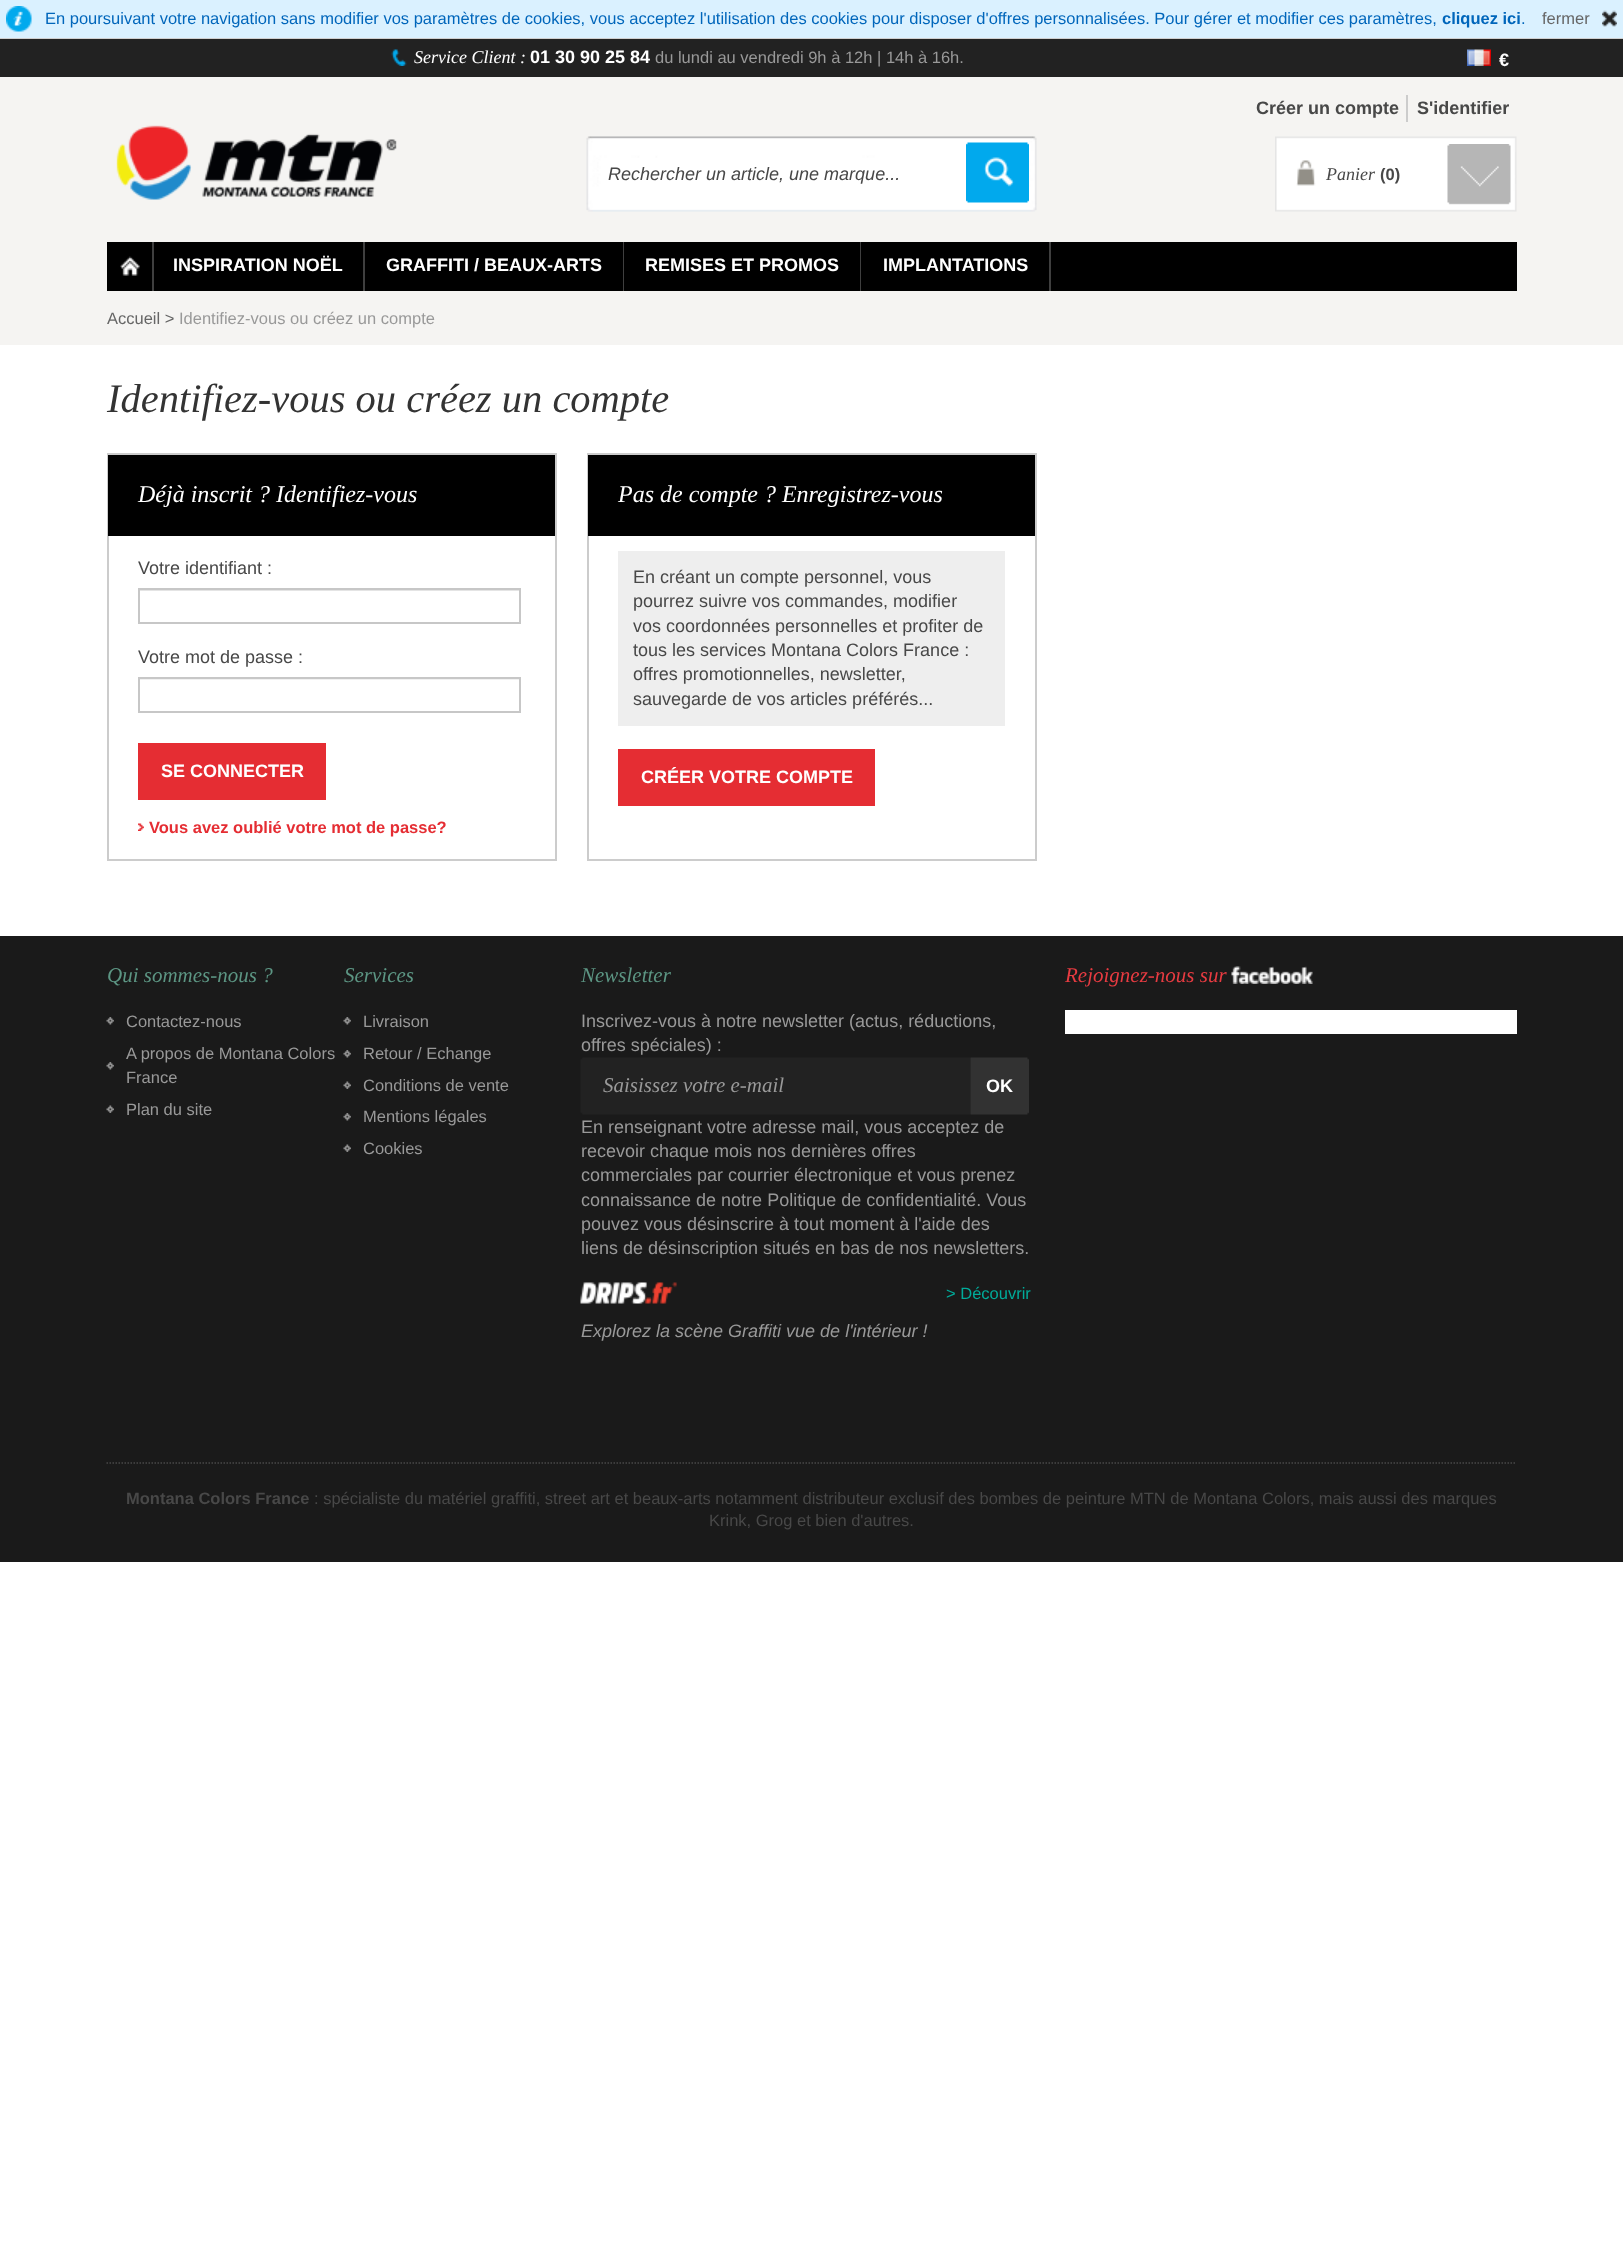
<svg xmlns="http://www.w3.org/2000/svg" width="1623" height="2246">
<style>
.a{font:16.5px Liberation Sans;fill:#06b}
.b{font:bold 16.5px Liberation Sans;fill:#06b}
.c{font:16.5px Liberation Sans;fill:#666}
.d{font:italic 18px Liberation Serif;fill:#fff}
.e{font:bold 18px Liberation Sans;fill:#fff}
.f{font:16.5px Liberation Sans;fill:#999}
.g{font:bold 18px Liberation Sans;fill:#484848}
.h{font:italic 18px Liberation Sans;fill:#484848}
.i{font:italic 18px Liberation Serif;fill:#484848}
.j{font:bold 16.5px Liberation Sans;fill:#484848}
.k{font:italic 40.5px Liberation Serif;fill:#333}
.l{font:italic 24px Liberation Serif;fill:#fff}
.m{font:18px Liberation Sans;fill:#484848}
.n{font:bold 16.5px Liberation Sans;fill:#e52d33}
.o{font:italic 21px Liberation Serif;fill:#5c9583}
.p{font:18px Liberation Sans;fill:#999}
.q{font:italic 21px Liberation Serif;fill:#999}
.r{font:16.5px Liberation Sans;fill:#01ab9a}
.s{font:italic 18px Liberation Sans;fill:#999}
.t{font:italic 21px Liberation Serif;fill:#e73b41}
.u{font:16.5px Liberation Sans;fill:#484848}
</style>
<rect width="100%" height="100%" fill="#fff"/>
<path fill="#daf1ff" d="M0 0h1623v38H0z"/>
<path fill="#cfcfcf" d="M0 38h1623v1H0z"/>
<image href="1.png" x="6" y="6" width="26" height="26"/>
<image href="2.png" x="1602" y="10" width="15" height="17"/>
<path fill="#f5f4f2" d="M0 77h1623v268H0z"/>
<path fill="#222" d="M0 39h1623v38H0z"/>
<image href="3.png" x="391" y="49" width="16" height="17"/>
<image href="4.png" x="1467" y="49" width="24" height="17"/>
<image href="5.png" x="116" y="125" width="281" height="75"/>
<path fill="#ccc" d="M1406 95h2v27H1406z"/>
<image href="6.png" x="586" y="136" width="451" height="76"/>
<image href="7.png" x="966" y="142" width="63" height="61"/>
<image href="8.png" x="1275" y="136" width="242" height="76"/>
<image href="9.png" x="1296" y="160" width="20" height="26"/>
<image href="10.png" x="1447" y="144" width="64" height="61"/>
<path fill="#000" d="M107 242h1410v49H107z"/>
<image href="11.png" x="120" y="256" width="20" height="20"/>
<path fill="#3f3f3f" d="M152 242h2v49H152z"/>
<path fill="#3f3f3f" d="M363 242h2v49H363z"/>
<path fill="#3f3f3f" d="M623 242h1v49H623z"/>
<path fill="#3f3f3f" d="M860 242h1v49H860z"/>
<path fill="#3f3f3f" d="M1049 242h2v49H1049z"/>
<path fill="none" stroke="#ccc" stroke-width="2" d="M108 454h448v406H108z"/>
<path fill="#000" d="M108 455h447v81H108z"/>
<image href="12.png" x="140" y="590" width="379" height="1"/>
<path fill="none" stroke="#c7c7c7" stroke-width="2" d="M139 589h381v34H139z"/>
<image href="13.png" x="140" y="679" width="379" height="1"/>
<path fill="none" stroke="#c7c7c7" stroke-width="2" d="M139 678h381v34H139z"/>
<path fill="#e52d33" d="M138 743h188v57H138z"/>
<image href="14.png" x="138" y="823" width="6" height="8"/>
<path fill="none" stroke="#ccc" stroke-width="2" d="M588 454h448v406H588z"/>
<path fill="#000" d="M588 455h447v81H588z"/>
<path fill="#eee" d="M618 551h387v175H618z"/>
<path fill="#e52d33" d="M618 749h257v57H618z"/>
<path fill="#1a1a1a" d="M0 936h1623v626H0z"/>
<image href="15.png" x="106" y="1017" width="8" height="8"/>
<image href="15.png" x="106" y="1062" width="8" height="8"/>
<image href="16.png" x="106" y="1105" width="8" height="8"/>
<image href="15.png" x="343" y="1017" width="8" height="8"/>
<image href="15.png" x="343" y="1050" width="8" height="8"/>
<image href="16.png" x="343" y="1081" width="8" height="8"/>
<image href="15.png" x="343" y="1113" width="8" height="8"/>
<image href="16.png" x="343" y="1144" width="8" height="8"/>
<image href="17.png" x="580" y="1057" width="391" height="58"/>
<image href="18.png" x="970" y="1057" width="59" height="58"/>
<image href="19.png" x="580" y="1282" width="97" height="22"/>
<image href="20.png" x="1231" y="966" width="82" height="18"/>
<path fill="#fff" d="M1065 1010h452v24H1065z"/>
<path fill="none" stroke="#484848" stroke-width="1.5" stroke-dasharray="1.5 1.5" d="M106.5 1463h1410"/>
<text class="a" x="45" y="24">En poursuivant votre navigation sans modifier vos paramètres de cookies, vous acceptez l'utilisation des cookies pour disposer d'offres personnalisées. Pour gérer et modifier ces paramètres,</text>
<text class="b" x="1442" y="24">cliquez ici</text>
<text class="a" x="1521" y="24">.</text>
<text class="c" x="1542" y="24">fermer</text>
<text class="d" x="414" y="63">Service Client :</text>
<text class="e" x="530" y="63">01 30 90 25 84</text>
<text class="f" x="655" y="63">du lundi au vendredi 9h à 12h | 14h à 16h.</text>
<text class="e" x="1499" y="66">€</text>
<text class="g" x="1256" y="114">Créer un compte</text>
<text class="g" x="1417" y="114">S'identifier</text>
<text class="h" x="608" y="180">Rechercher un article, une marque...</text>
<text class="i" x="1326" y="180">Panier</text>
<text class="j" x="1380" y="180">(0)</text>
<text class="e" x="173" y="271">INSPIRATION NOËL</text>
<text class="e" x="386" y="271">GRAFFITI / BEAUX-ARTS</text>
<text class="e" x="645" y="271">REMISES ET PROMOS</text>
<text class="e" x="883" y="271">IMPLANTATIONS</text>
<text class="c" x="107" y="324">Accueil &gt;</text>
<text class="f" x="179" y="324">Identifiez-vous ou créez un compte</text>
<text class="k" x="107" y="412">Identifiez-vous ou créez un compte</text>
<text class="l" x="138" y="502">Déjà inscrit ? Identifiez-vous</text>
<text class="m" x="138" y="574">Votre identifiant :</text>
<text class="m" x="138" y="663">Votre mot de passe :</text>
<text class="e" x="161" y="777">SE CONNECTER</text>
<text class="n" x="149" y="833">Vous avez oublié votre mot de passe?</text>
<text class="l" x="618" y="502">Pas de compte ? Enregistrez-vous</text>
<text class="m" x="633" y="583">En créant un compte personnel, vous</text>
<text class="m" x="633" y="607">pourrez suivre vos commandes, modifier</text>
<text class="m" x="633" y="632">vos coordonnées personnelles et profiter de</text>
<text class="m" x="633" y="656">tous les services Montana Colors France :</text>
<text class="m" x="633" y="680">offres promotionnelles, newsletter,</text>
<text class="m" x="633" y="705">sauvegarde de vos articles préférés...</text>
<text class="e" x="641" y="783">CRÉER VOTRE COMPTE</text>
<text class="o" x="107" y="982">Qui sommes-nous ?</text>
<text class="f" x="126" y="1027">Contactez-nous</text>
<text class="f" x="126" y="1059">A propos de Montana Colors</text>
<text class="f" x="126" y="1083">France</text>
<text class="f" x="126" y="1115">Plan du site</text>
<text class="o" x="344" y="982">Services</text>
<text class="f" x="363" y="1027">Livraison</text>
<text class="f" x="363" y="1059">Retour / Echange</text>
<text class="f" x="363" y="1091">Conditions de vente</text>
<text class="f" x="363" y="1122">Mentions légales</text>
<text class="f" x="363" y="1154">Cookies</text>
<text class="o" x="581" y="982">Newsletter</text>
<text class="p" x="581" y="1027">Inscrivez-vous à notre newsletter (actus, réductions,</text>
<text class="p" x="581" y="1051">offres spéciales) :</text>
<text class="q" x="603" y="1092">Saisissez votre e-mail</text>
<text class="e" x="986" y="1092">OK</text>
<text class="p" x="581" y="1133">En renseignant votre adresse mail, vous acceptez de</text>
<text class="p" x="581" y="1157">recevoir chaque mois nos dernières offres</text>
<text class="p" x="581" y="1181">commerciales par courrier électronique et vous prenez</text>
<text class="p" x="581" y="1206">connaissance de notre Politique de confidentialité. Vous</text>
<text class="p" x="581" y="1230">pouvez vous désinscrire à tout moment à l'aide des</text>
<text class="p" x="581" y="1254">liens de désinscription situés en bas de nos newsletters.</text>
<text class="r" x="946" y="1299">&gt; Découvrir</text>
<text class="s" x="581" y="1337">Explorez la scène Graffiti vue de l'intérieur !</text>
<text class="t" x="1065" y="982">Rejoignez-nous sur</text>
<text class="j" x="126" y="1504">Montana Colors France</text>
<text class="u" x="314" y="1504">: spécialiste du matériel graffiti, street art et beaux-arts notamment distributeur exclusif des bombes de peinture MTN de Montana Colors, mais aussi des marques</text>
<text class="u" x="709" y="1526">Krink, Grog et bien d'autres.</text>
</svg>
